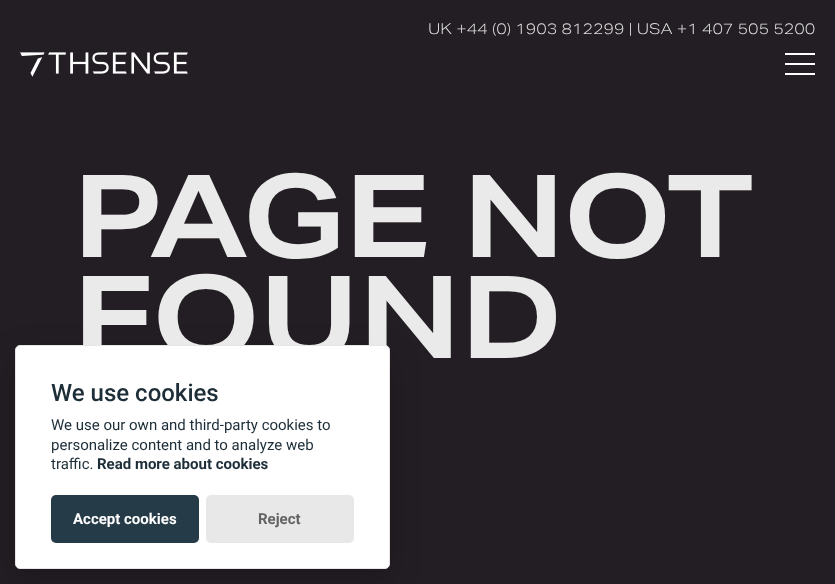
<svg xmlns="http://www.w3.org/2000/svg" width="835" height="584">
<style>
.a{font:300 15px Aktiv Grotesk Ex;fill:#dcdcdc}
.b{font:bold 115px Aktiv Grotesk Ex;fill:#eaeaea}
.c{font:500 24px Roboto;fill:#1d2e38}
.d{font:15px Roboto;fill:#1d2e38}
.e{font:bold 15px Roboto;fill:#1d2e38}
.f{font:bold 15px Roboto;fill:#fff}
.g{font:bold 15px Roboto;fill:#636363}
</style>
<rect width="100%" height="100%" fill="#231e23"/>
<image href="1.png" x="20" y="52" width="168" height="25"/>
<path fill="#fff" d="M785 63h30v2H785z"/>
<path fill="#fff" d="M785 53h30v2H785z"/>
<path fill="#fff" d="M785 73h30v2H785z"/>
<rect fill="#02020333" filter="blur(15px)" x="15" y="355" width="375" height="224" rx="5"/>
<text class="a" x="428" y="34">UK +44 (0) 1903 812299 | USA +1 407 505 5200</text>
<text class="b" x="73" y="257">PAGE NOT</text>
<text class="b" x="73" y="358">FOUND</text>
<rect fill="#fff" stroke="#e6e6e6" x="15.5" y="345.5" width="374" height="223" rx="4.5"/>
<text class="c" x="51" y="401">We use cookies</text>
<text class="d" x="51" y="430">We use our own and third-party cookies to</text>
<text class="d" x="51" y="450">personalize content and to analyze web</text>
<text class="d" x="51" y="469">traffic.</text>
<text class="e" x="97" y="469">Read more about cookies</text>
<rect fill="#253b48" x="51" y="495" width="148" height="48" rx="5"/>
<text class="f" x="73" y="524">Accept cookies</text>
<rect fill="#e8e8e8" x="206" y="495" width="148" height="48" rx="5"/>
<text class="g" x="258" y="524">Reject</text>
</svg>
